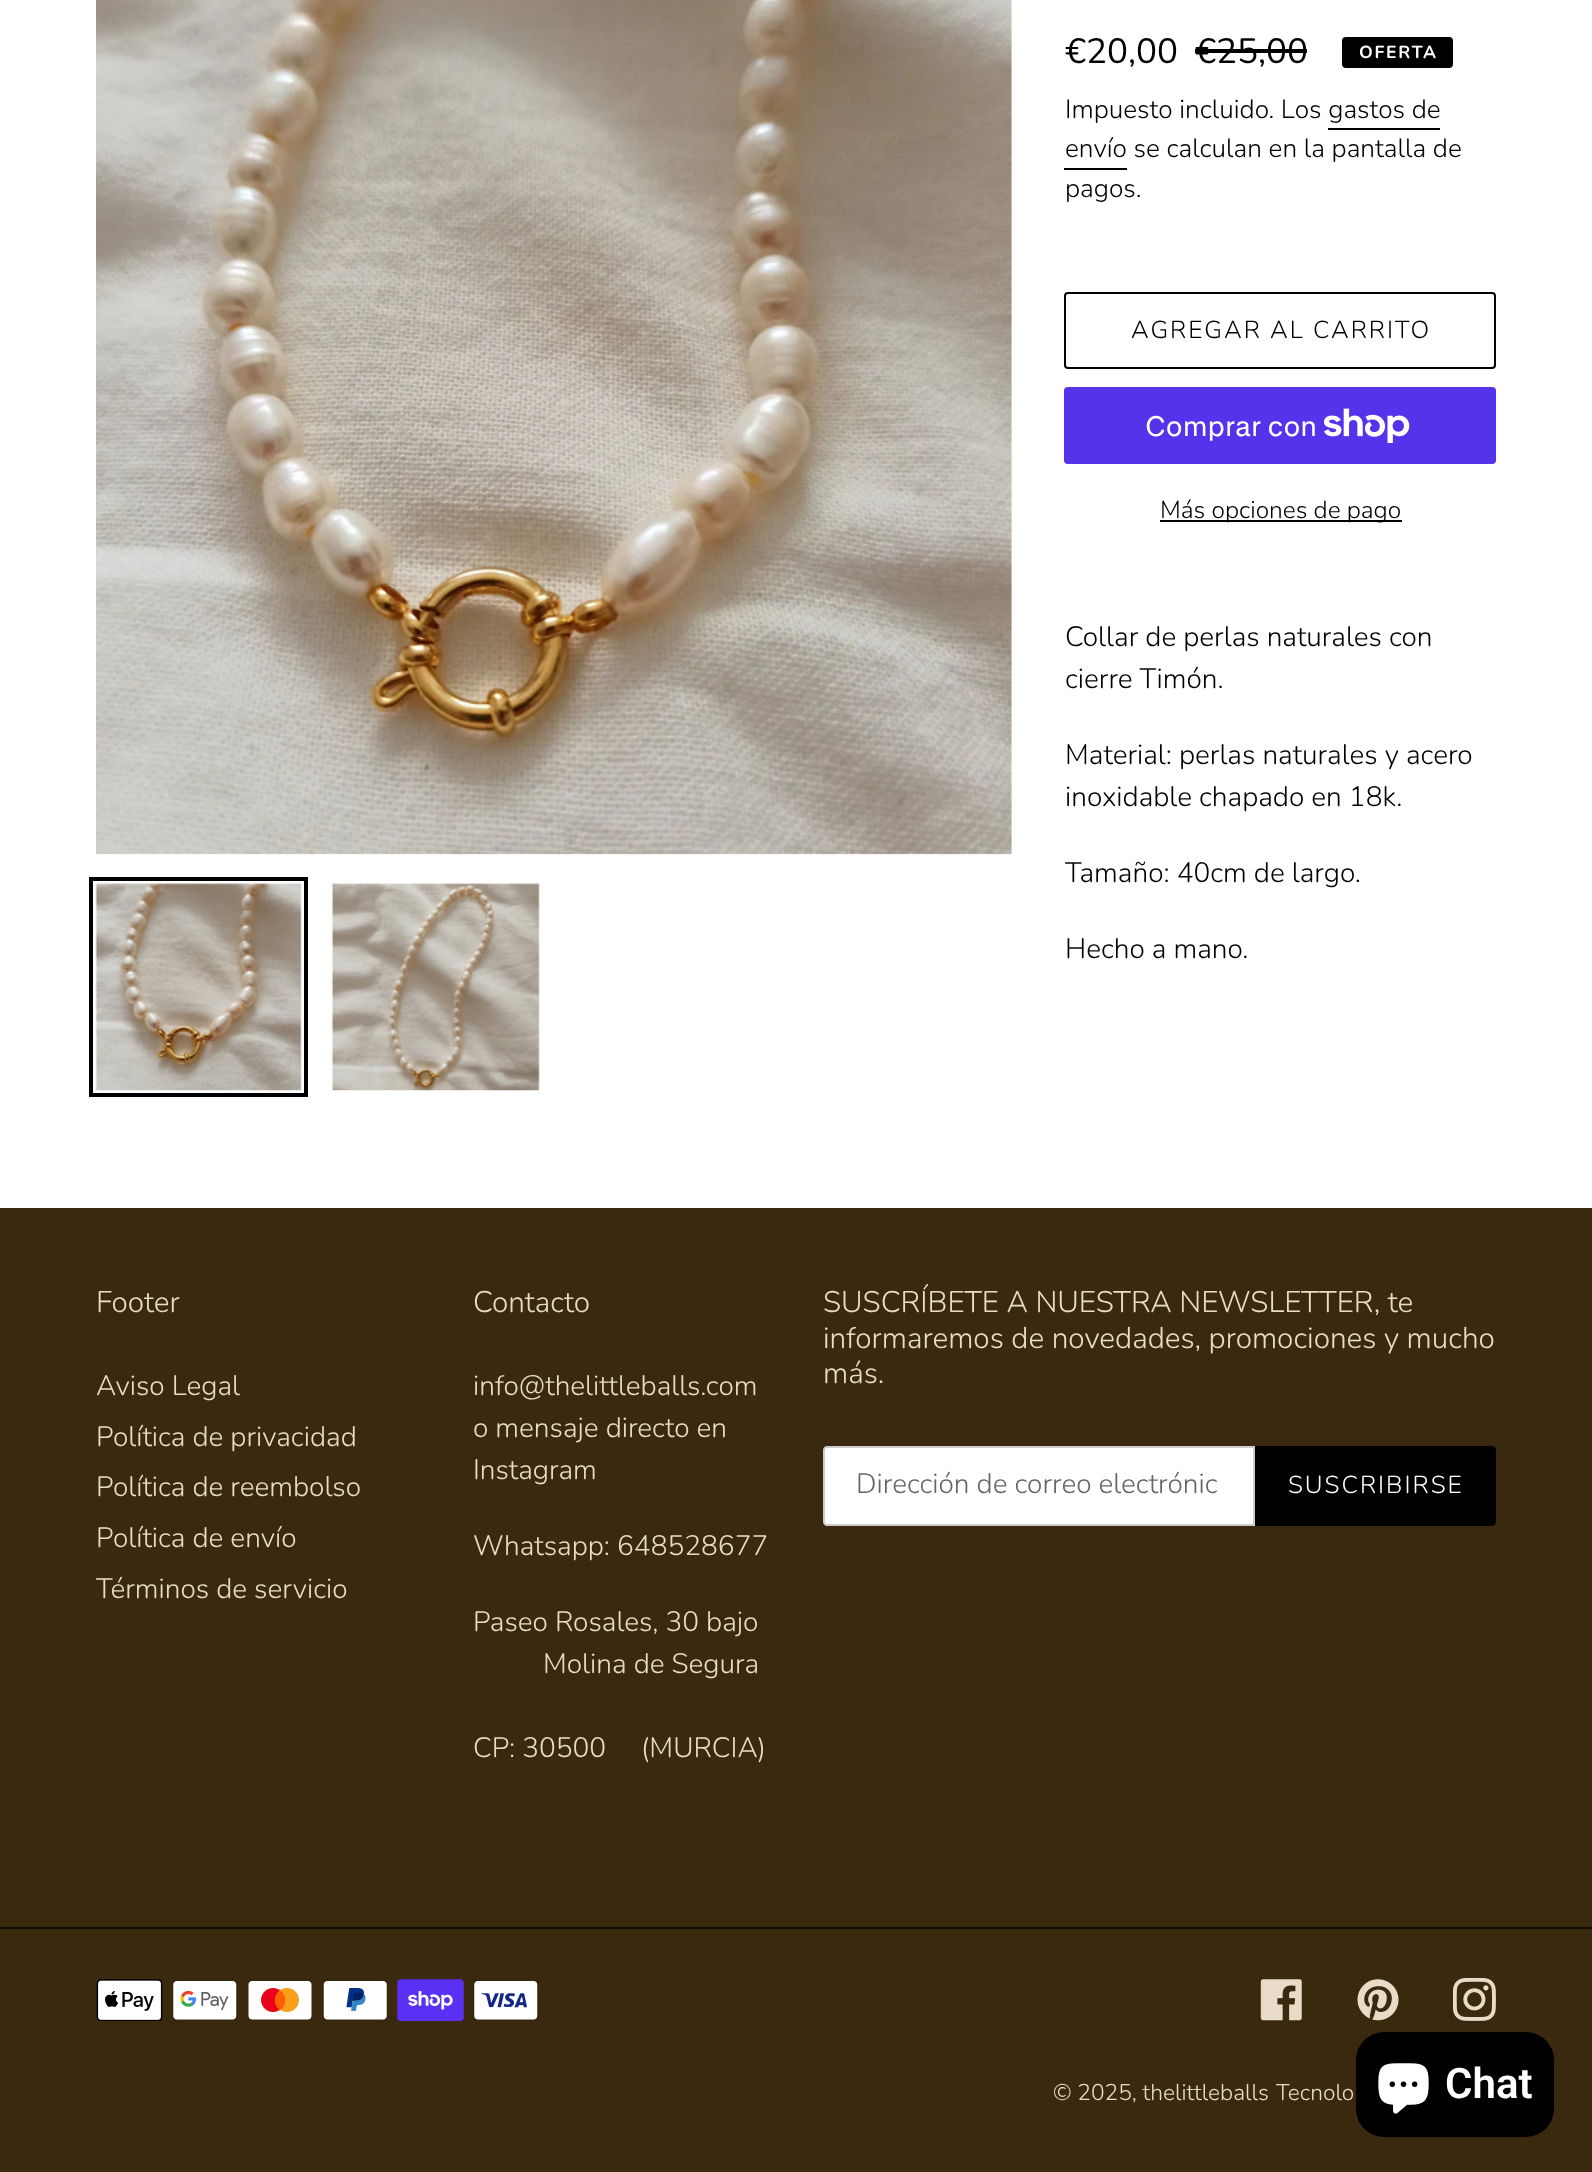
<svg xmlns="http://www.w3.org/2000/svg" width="1592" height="2172">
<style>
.a{font:35px Nunito;fill:#000}
.b{font:bold 17.5px Nunito;letter-spacing:1.75px;fill:#fff}
.c{font:300 26.25px Nunito;fill:#000}
.d{font:300 24.5px Nunito;letter-spacing:2px;fill:#000}
.e{font:28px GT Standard;fill:#fff}
.f{font:300 24.5px Nunito;fill:#000}
.g{font:300 28px Nunito;fill:#000}
.h{font:300 29.75px Nunito;fill:#e8dcc8}
.i{font:300 28px Nunito;fill:#e8dcc8}
.j{font:300 28px Nunito;fill:#666}
.k{font:300 24.5px Nunito;letter-spacing:2px;fill:#fff}
.l{font:300 22.75px Nunito;fill:#e8dcc8}
.m{font:600 42px Roboto;fill:#fff}
</style>
<rect width="100%" height="100%" fill="#fff"/>
<image href="1.png" x="96" y="0" width="916" height="855"/>
<path fill="none" stroke="#000" stroke-width="4" d="M91 879h215v216H91z"/>
<image href="2.png" x="95" y="883" width="207" height="208"/>
<image href="3.png" x="331" y="883" width="209" height="208"/>
<path fill="#000" d="M1195 49h112v4H1195z"/>
<rect fill="#000" stroke="#000" stroke-width="2" x="1343" y="38" width="109" height="29" rx="3"/>
<path fill="#000" d="M1328 128h112v2H1328z"/>
<path fill="#000" d="M1064 168h63v2H1064z"/>
<rect fill="none" stroke="#000" stroke-width="2" x="1065" y="293" width="430" height="75" rx="3"/>
<rect fill="#5433eb" x="1064" y="387" width="432" height="77" rx="4"/>
<image href="4.png" x="1324" y="408" width="86" height="35"/>
<path fill="#000" d="M1160 520h242v2H1160z"/>
<path fill="#3a280f" d="M0 1208h1592v964H0z"/>
<path fill="#fff" stroke="#ccc" stroke-width="2" d="M827 1447h427v78h-427c-1.5 0-3-1.5-3-3v-72c0-1.5 1.5-3 3-3z"/>
<path fill="#000" d="M1255 1446h237c2 0 4 2 4 4v72c0 2-2 4-4 4h-237z"/>
<path fill="#110c05" d="M0 1927h1592v2H0z"/>
<image href="5.png" x="96" y="1979" width="67" height="42"/>
<image href="6.png" x="172" y="1980" width="66" height="41"/>
<image href="7.png" x="247" y="1980" width="66" height="41"/>
<image href="8.png" x="322" y="1980" width="66" height="41"/>
<image href="9.png" x="397" y="1979" width="67" height="42"/>
<image href="10.png" x="473" y="1980" width="66" height="41"/>
<image href="11.png" x="1260" y="1979" width="42" height="42"/>
<image href="12.png" x="1357" y="1979" width="42" height="42"/>
<image href="13.png" x="1453" y="1978" width="43" height="43"/>
<rect fill="#000" x="1356" y="2032" width="198" height="105" rx="28"/>
<image href="14.png" x="1378" y="2063" width="51" height="51"/>
<text class="a" x="1065" y="63">€20,00</text>
<text class="a" x="1195" y="63">€25,00</text>
<text class="b" x="1359" y="58">OFERTA</text>
<text class="c" x="1065" y="118">Impuesto incluido. Los gastos de</text>
<text class="c" x="1065" y="157">envío se calculan en la pantalla de</text>
<text class="c" x="1065" y="197">pagos.</text>
<text class="d" x="1131" y="338">AGREGAR AL CARRITO</text>
<text class="e" x="1145" y="436">Comprar con</text>
<text class="f" x="1160" y="518">Más opciones de pago</text>
<text class="g" x="1065" y="646">Collar de perlas naturales con</text>
<text class="g" x="1065" y="688">cierre Timón.</text>
<text class="g" x="1065" y="764">Material: perlas naturales y acero</text>
<text class="g" x="1065" y="806">inoxidable chapado en 18k.</text>
<text class="g" x="1065" y="882">Tamaño: 40cm de largo.</text>
<text class="g" x="1065" y="958">Hecho a mano.</text>
<text class="h" x="96" y="1312">Footer</text>
<text class="i" x="96" y="1395">Aviso Legal</text>
<text class="i" x="96" y="1446">Política de privacidad</text>
<text class="i" x="96" y="1496">Política de reembolso</text>
<text class="i" x="96" y="1547">Política de envío</text>
<text class="i" x="96" y="1598">Términos de servicio</text>
<text class="h" x="473" y="1312">Contacto</text>
<text class="i" x="473" y="1395">info@thelittleballs.com</text>
<text class="i" x="473" y="1437">o mensaje directo en</text>
<text class="i" x="473" y="1479">Instagram</text>
<text class="i" x="473" y="1555">Whatsapp: 648528677</text>
<text class="i" x="473" y="1631">Paseo Rosales, 30 bajo</text>
<text class="i" x="543" y="1673">Molina de Segura</text>
<text class="i" x="473" y="1757">CP: 30500</text>
<text class="i" x="641" y="1757">(MURCIA)</text>
<text class="h" x="823" y="1312">SUSCRÍBETE A NUESTRA NEWSLETTER, te</text>
<text class="h" x="823" y="1348">informaremos de novedades, promociones y mucho</text>
<text class="h" x="823" y="1383">más.</text>
<text class="j" x="856" y="1493">Dirección de correo electrónic</text>
<text class="k" x="1288" y="1493">SUSCRIBIRSE</text>
<text class="l" x="1053" y="2100">© 2025, thelittleballs</text>
<text class="l" x="1276" y="2100">Tecnolo</text>
<text class="m" x="1445" y="2098">Chat</text>
</svg>
